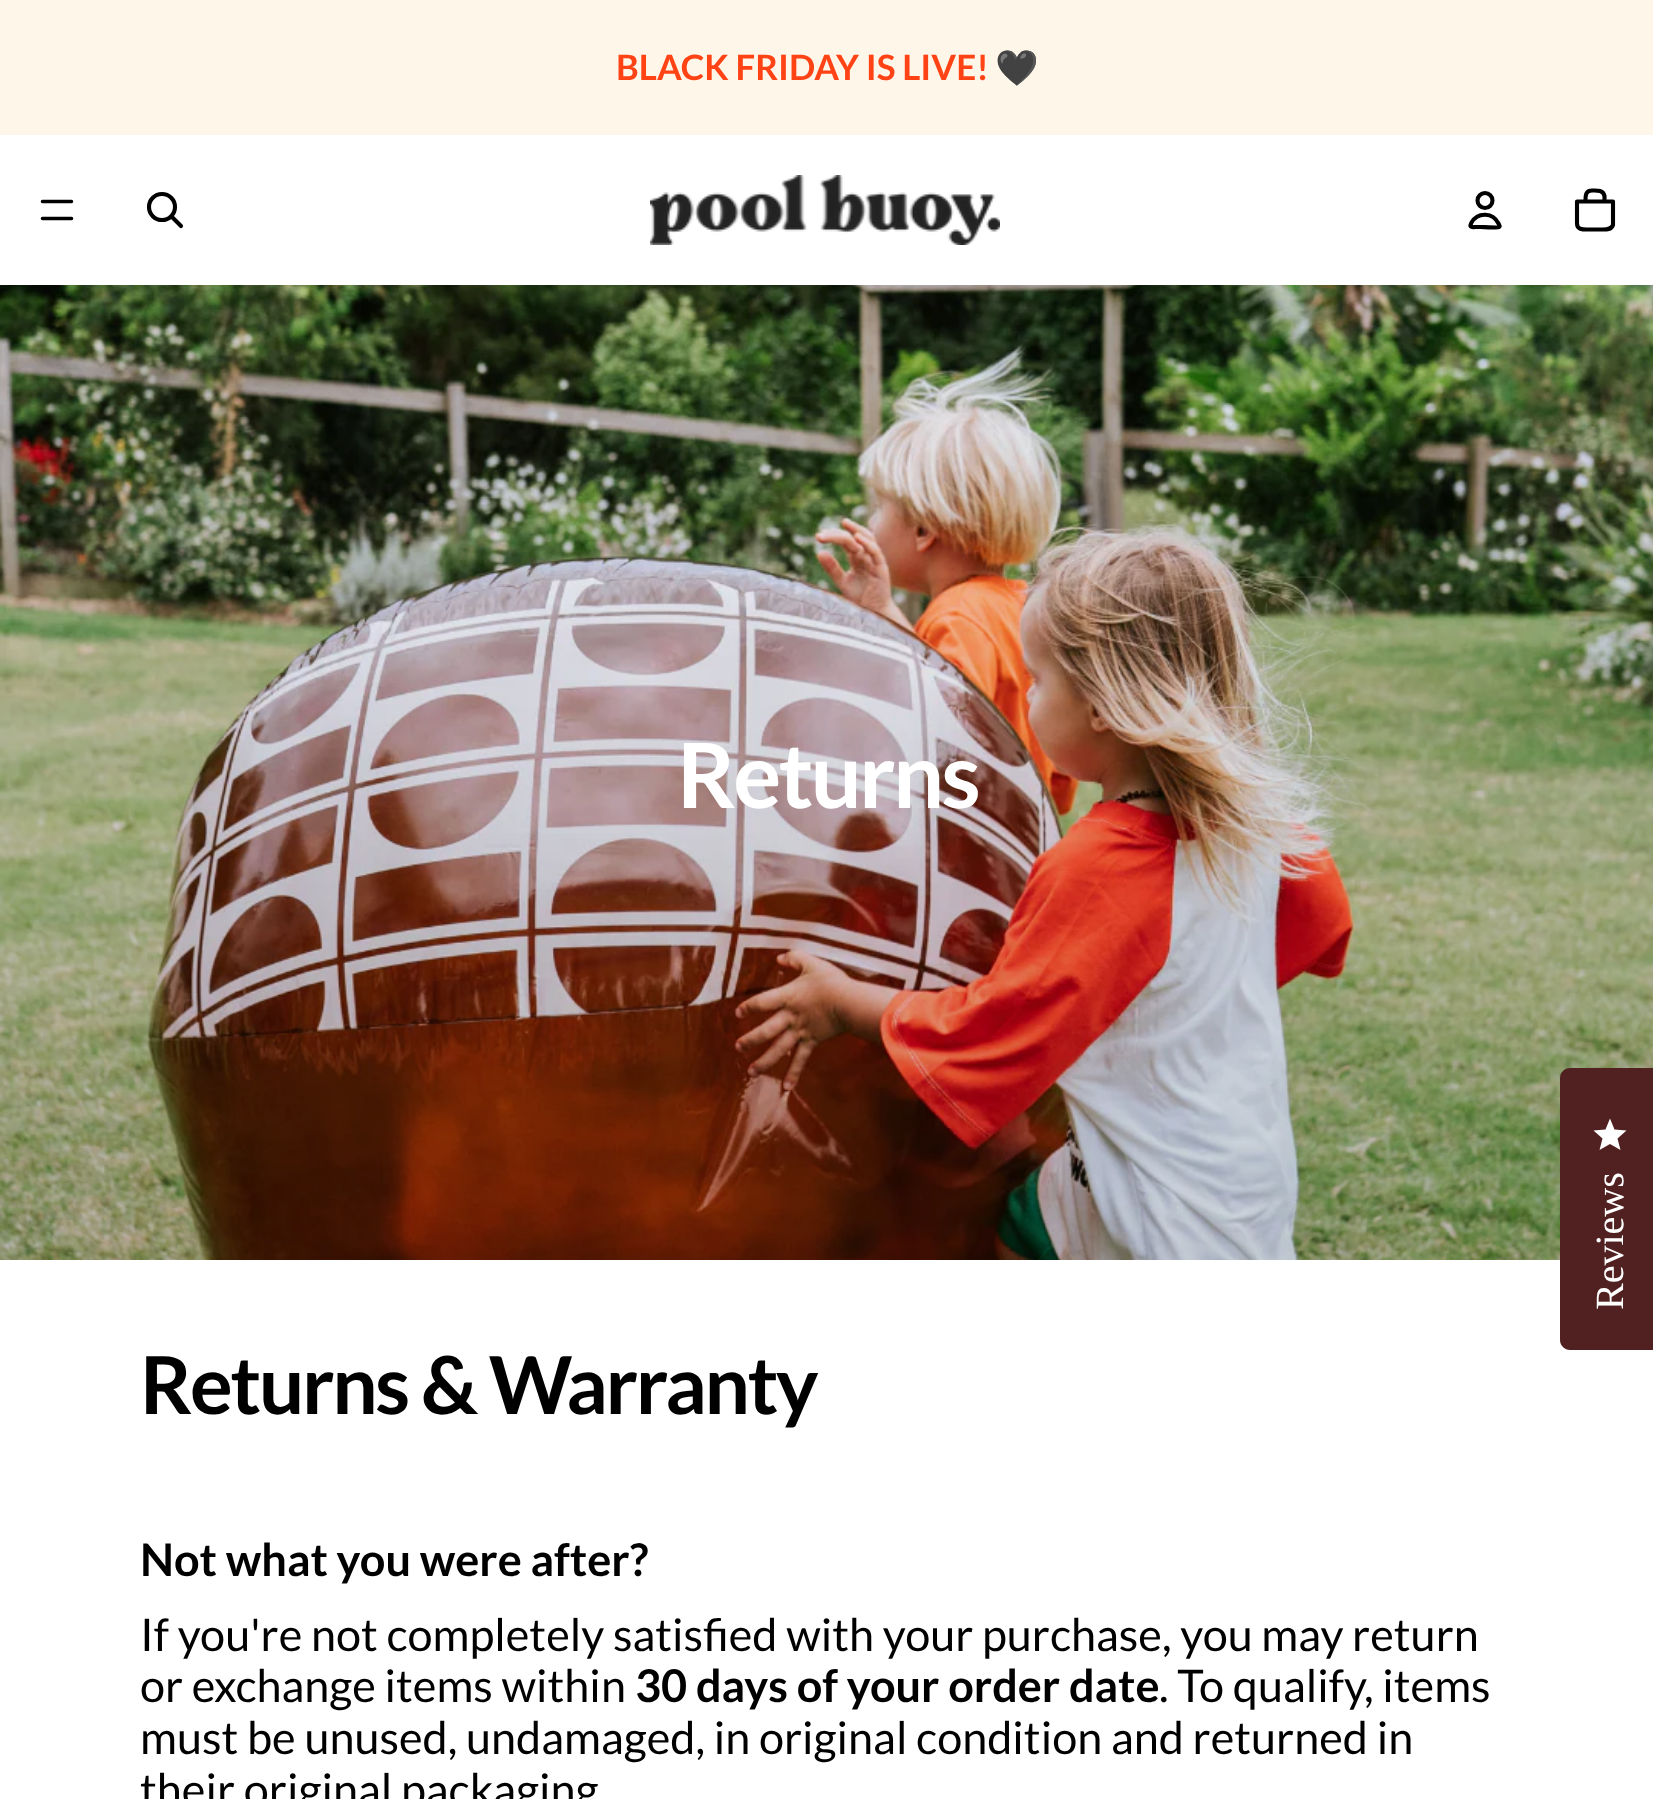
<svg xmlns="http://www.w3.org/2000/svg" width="1653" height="1799">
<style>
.a{font:bold 35px Lato;fill:#ff4315}
.b{font:bold 35px Noto Color Emoji;fill:#ff4315}
.c{font:bold 90px Lato;letter-spacing:-2.75px;fill:#fff}
.d{font:bold 80px Lato;letter-spacing:-2.4px;fill:#000}
.e{font:bold 45px Lato;fill:#000}
.f{font:45px Lato;fill:#000}
.g{font:40px Liberation Serif;fill:#fff}
</style>
<rect width="100%" height="100%" fill="#fff"/>
<path fill="#fff6ea" d="M0 0h1653v135H0z"/>
<path fill="none" stroke="#000" stroke-width="3.6" stroke-linecap="round" d="M42.5 201.5h29m-29 17h29"/>
<circle fill="none" stroke="#000" stroke-width="4.1" cx="162" cy="207" r="13"/>
<path fill="none" stroke="#000" stroke-width="4.1" stroke-linecap="round" stroke-linejoin="round" d="M172 217l9 9"/>
<image href="1.png" x="650" y="175" width="350" height="70"/>
<circle fill="none" stroke="#000" stroke-width="4.1" cx="1485" cy="200.5" r="7.5"/>
<path fill="none" stroke="#000" stroke-width="4.1" stroke-linecap="round" stroke-linejoin="round" d="M1471.5 222.5l-1 2.5c-1 3 5 2 6 2h4c2.5 0 17.5 1 18.5 0l.5-.5c.5-1-.5-2-1-3c-5.5-11-20.5-12-27-1"/>
<path fill="none" stroke="#000" stroke-width="4.1" stroke-linecap="round" stroke-linejoin="round" d="M1577 201.5h36v23.5c-1.5 4.5-6 4.5-10 4.5h-16c-4.5 0-10 0-10-6zm14.5-11c5 0 11.5-1 13 5.5v5.5h-19c0-5-.5-11 6.5-11"/>
<image href="2.png" x="0" y="285" width="1653" height="975"/>
<path fill="#502120" d="M1570 1068h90v282h-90c-5.5 0-10-4.5-10-10v-262c0-5.5 4.5-10 10-10z"/>
<path fill="#fff" d="M1610 1144l10.5 6l-3-11.5l9-8l-12-1l-4.5-11l-4.5 11l-12 1l9 8l-3 11.5z"/>
<text class="a" x="616" y="80">BLACK FRIDAY IS LIVE!</text>
<text class="b" x="995" y="80">🖤</text>
<text class="c" x="677" y="808">Returns</text>
<text class="d" x="140" y="1414">Returns &amp; Warranty</text>
<text class="e" x="140" y="1576">Not what you were after?</text>
<text class="f" x="140" y="1651">If you're not completely satisfied with your purchase, you may return</text>
<text class="f" x="140" y="1702">or exchange items within</text>
<text class="e" x="635" y="1702">30 days of your order date</text>
<text class="f" x="1159" y="1702">. To qualify, items</text>
<text class="f" x="140" y="1754">must be unused, undamaged, in original condition and returned in</text>
<text class="f" x="140" y="1806">their original packaging</text>
<text class="g" x="1623" y="1310" transform="rotate(-89.9 1623 1310)">Reviews</text>
</svg>
